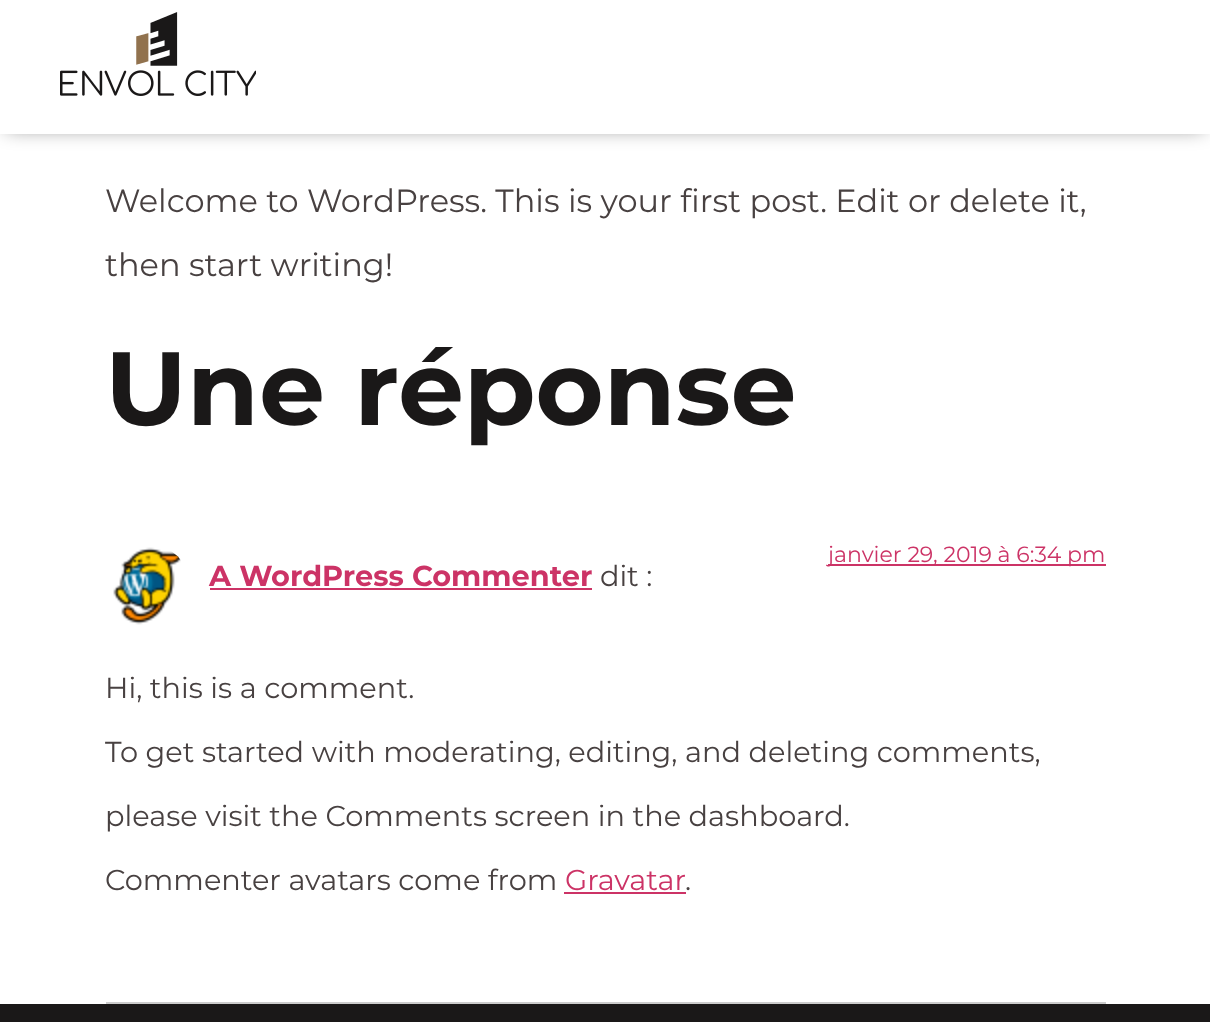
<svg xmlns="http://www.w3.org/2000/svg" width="1210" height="1022">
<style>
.a{font:32px Montserrat;fill:#484141}
.b{font:bold 104px Montserrat;fill:#1a1818}
.c{font:22px Montserrat;fill:#c36}
.d{font:bold 28.8px Montserrat;fill:#c36}
.e{font:28.8px Montserrat;fill:#484141}
.f{font:28.8px Montserrat;fill:#c36}
</style>
<rect width="100%" height="100%" fill="#fff"/>
<path fill="#00000080" filter="blur(10px)" d="M6 -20h1198v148H6z"/>
<path fill="#fff" d="M0 0h1210v134H0z"/>
<image href="1.png" x="60" y="12" width="196" height="84"/>
<path fill="#ccc" d="M106 1002h1000v2H106z"/>
<path fill="#c36" d="M828 564h278v2H828z"/>
<image href="2.png" x="113" y="547" width="68" height="78"/>
<path fill="#c36" d="M210 588h382v2H210z"/>
<path fill="#c36" d="M564 892h122v2H564z"/>
<path fill="#1a1818" d="M0 1004h1210v18H0z"/>
<text class="a" x="105" y="212">Welcome to WordPress. This is your first post. Edit or delete it,</text>
<text class="a" x="105" y="276">then start writing!</text>
<text class="b" x="105" y="425">Une réponse</text>
<text class="c" x="828" y="562">janvier 29, 2019 à 6:34 pm</text>
<text class="d" x="209" y="586">A WordPress Commenter</text>
<text class="e" x="600" y="586">dit :</text>
<text class="e" x="105" y="698">Hi, this is a comment.</text>
<text class="e" x="105" y="762">To get started with moderating, editing, and deleting comments,</text>
<text class="e" x="105" y="826">please visit the Comments screen in the dashboard.</text>
<text class="e" x="105" y="890">Commenter avatars come from</text>
<text class="f" x="565" y="890">Gravatar</text>
<text class="e" x="685" y="890">.</text>
</svg>
